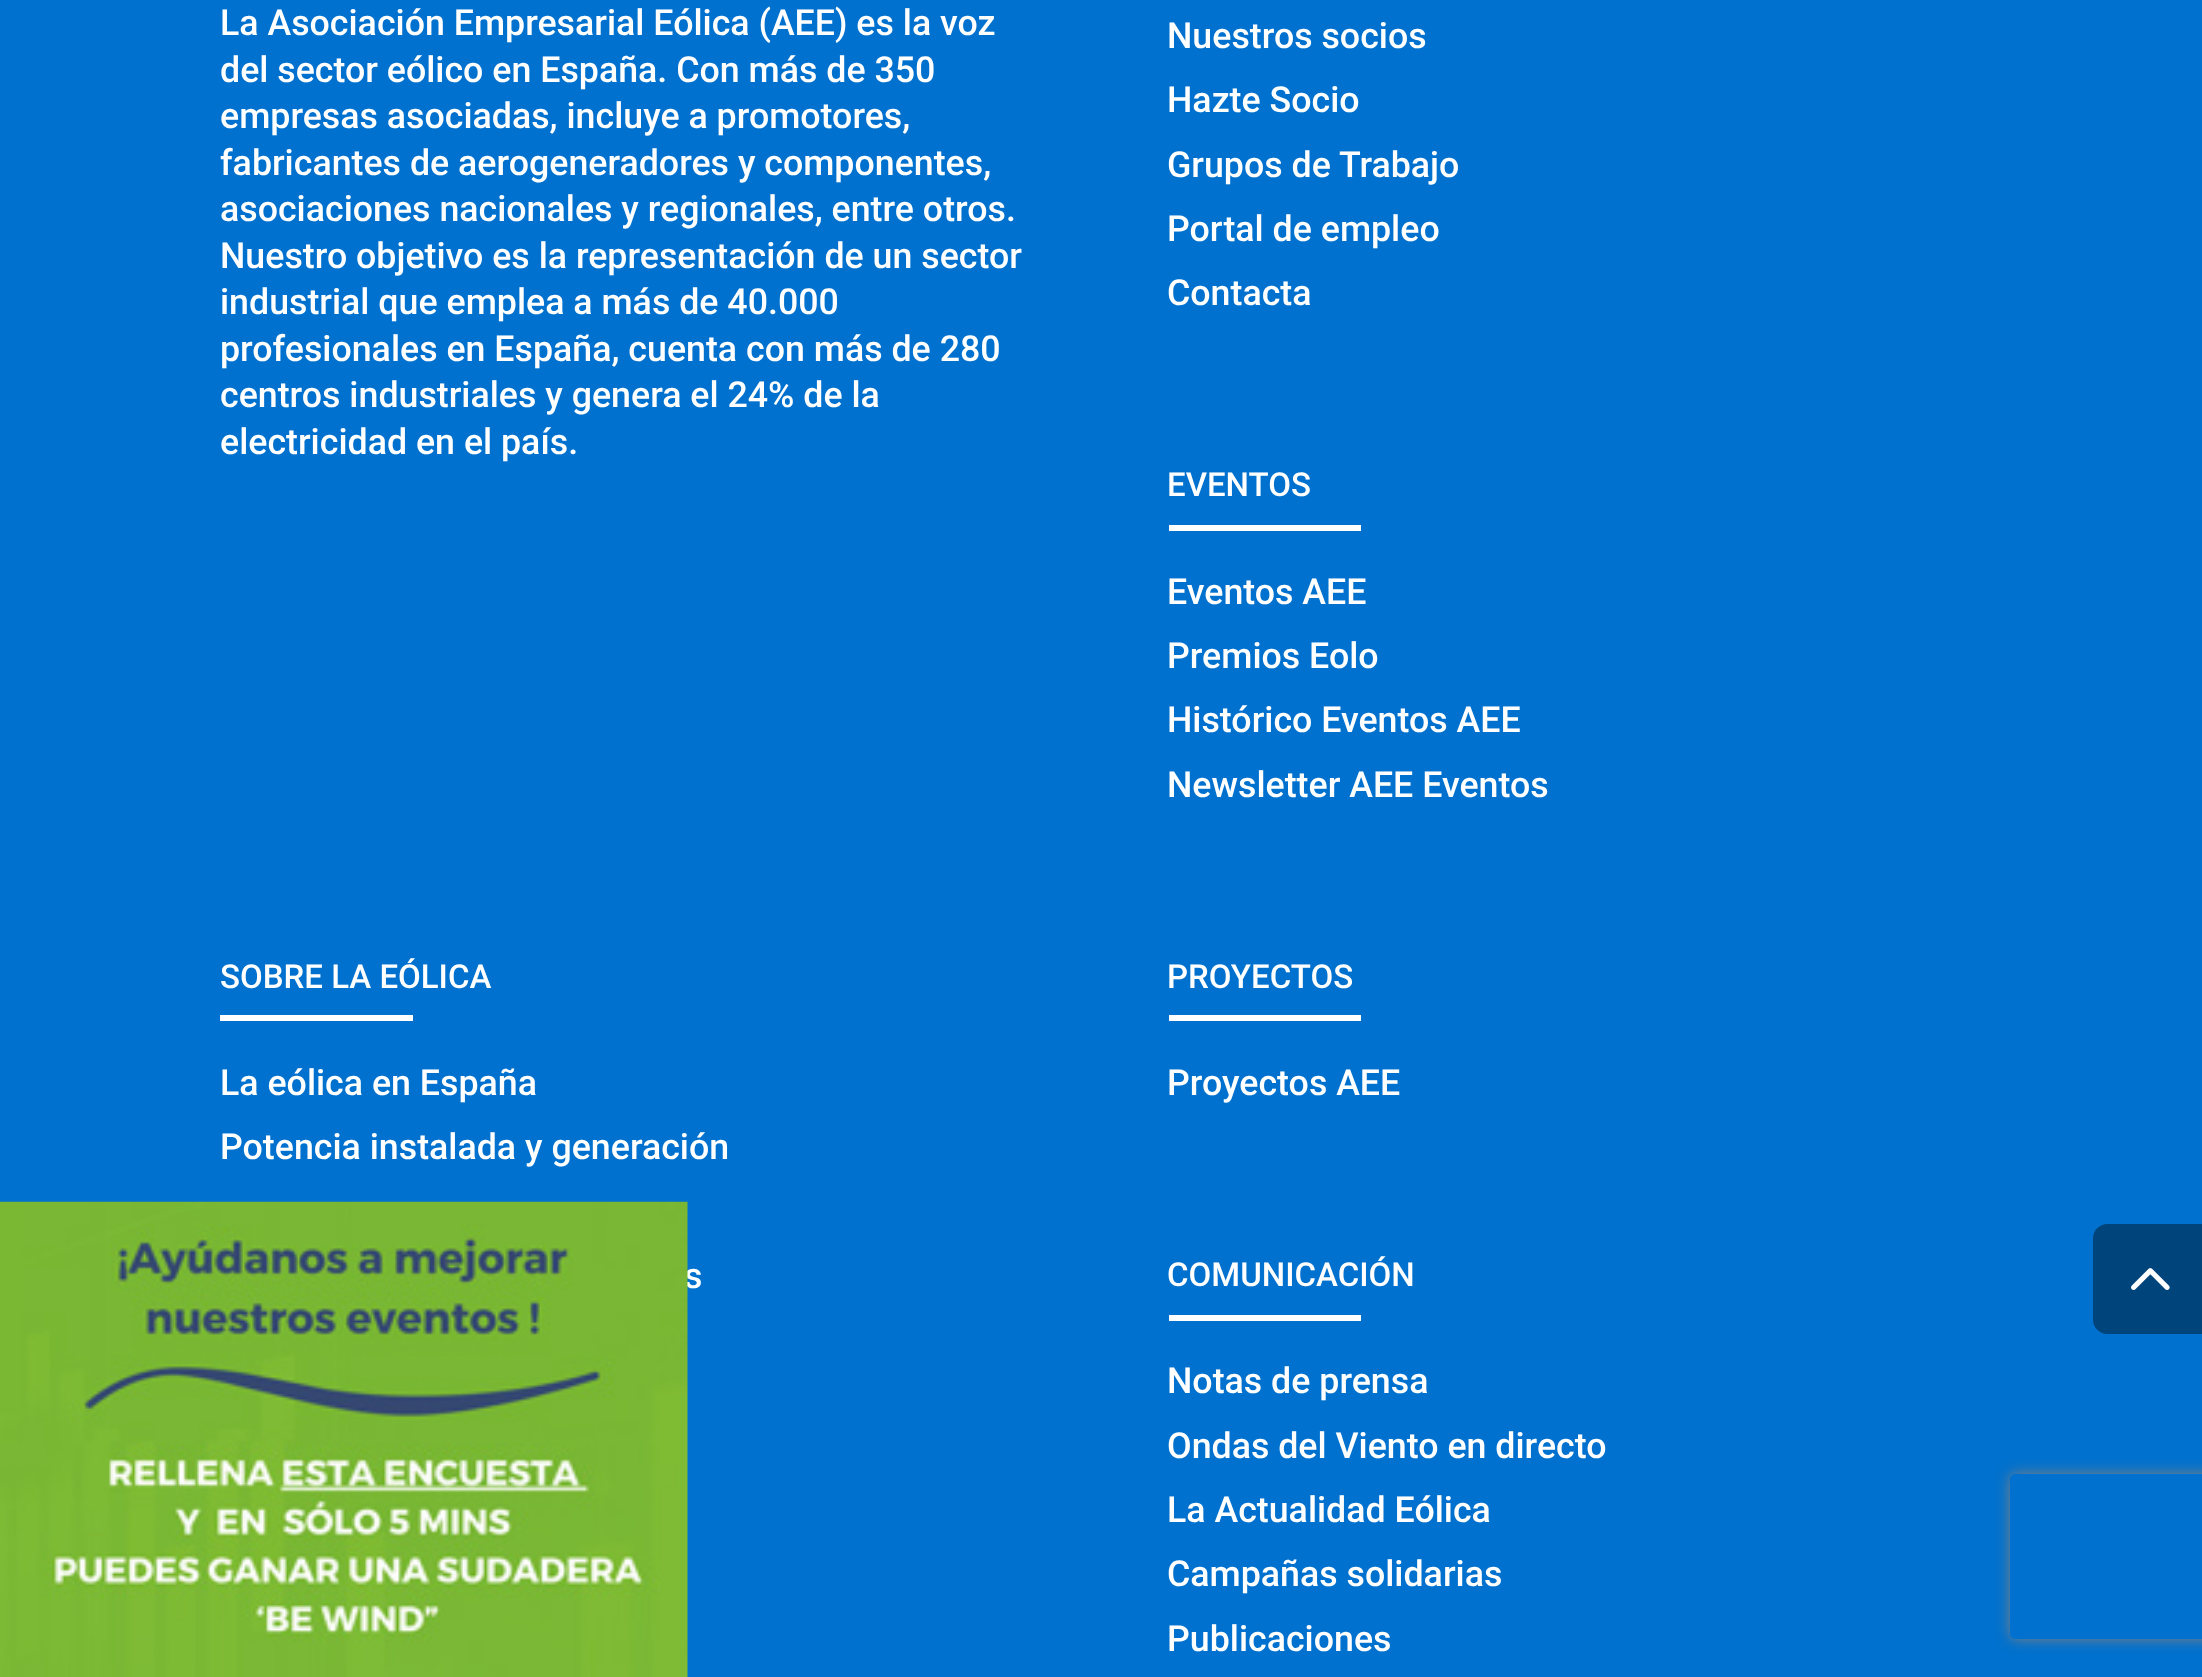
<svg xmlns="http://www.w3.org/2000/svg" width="2202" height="1677">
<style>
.a{font:500 35.75px Roboto;fill:#fff}
.b{font:500 33px Roboto;fill:#fff}
</style>
<defs>
<clipPath id="clip1"><path d="M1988 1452h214v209h-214zm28 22h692c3.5 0 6 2.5 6 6v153c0 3.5-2.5 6-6 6h-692c-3.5 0-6-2.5-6-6v-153c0-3.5 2.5-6 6-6z" clip-rule="evenodd"/></clipPath>
</defs>
<rect width="100%" height="100%" fill="#0071ce"/>
<path fill="#fff" d="M1169 525h192v6H1169z"/>
<path fill="#fff" d="M220 1015h193v6H220z"/>
<path fill="#fff" d="M1169 1015h192v6H1169z"/>
<path fill="#fff" d="M1169 1315h192v6H1169z"/>
<path fill="#00447c" d="M2107 1224h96v110h-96c-7.5 0-14-6.5-14-14v-82c0-7.5 6.5-14 14-14z"/>
<image href="1.png" x="2131" y="1268" width="39" height="22"/>
<g clip-path="url(#clip1)">
<rect fill="#808080" filter="blur(7px)" x="2010" y="1474" width="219" height="165" rx="6"/>
</g>
<text class="a" x="220" y="35">La Asociación Empresarial Eólica (AEE) es la voz</text>
<text class="a" x="220" y="82">del sector eólico en España. Con más de 350</text>
<text class="a" x="220" y="128">empresas asociadas, incluye a promotores,</text>
<text class="a" x="220" y="175">fabricantes de aerogeneradores y componentes,</text>
<text class="a" x="220" y="221">asociaciones nacionales y regionales, entre otros.</text>
<text class="a" x="220" y="268">Nuestro objetivo es la representación de un sector</text>
<text class="a" x="220" y="314">industrial que emplea a más de 40.000</text>
<text class="a" x="220" y="361">profesionales en España, cuenta con más de 280</text>
<text class="a" x="220" y="407">centros industriales y genera el 24% de la</text>
<text class="a" x="220" y="454">electricidad en el país.</text>
<text class="a" x="1167" y="48">Nuestros socios</text>
<text class="a" x="1167" y="112">Hazte Socio</text>
<text class="a" x="1167" y="177">Grupos de Trabajo</text>
<text class="a" x="1167" y="241">Portal de empleo</text>
<text class="a" x="1167" y="305">Contacta</text>
<text class="b" x="1167" y="496">EVENTOS</text>
<text class="a" x="1167" y="604">Eventos AEE</text>
<text class="a" x="1167" y="668">Premios Eolo</text>
<text class="a" x="1167" y="732">Histórico Eventos AEE</text>
<text class="a" x="1167" y="797">Newsletter AEE Eventos</text>
<text class="b" x="220" y="988">SOBRE LA EÓLICA</text>
<text class="a" x="220" y="1095">La eólica en España</text>
<text class="a" x="220" y="1159">Potencia instalada y generación</text>
<text class="a" x="684" y="1288">s</text>
<text class="b" x="1167" y="988">PROYECTOS</text>
<text class="a" x="1167" y="1095">Proyectos AEE</text>
<text class="b" x="1167" y="1286">COMUNICACIÓN</text>
<text class="a" x="1167" y="1393">Notas de prensa</text>
<text class="a" x="1167" y="1458">Ondas del Viento en directo</text>
<text class="a" x="1167" y="1522">La Actualidad Eólica</text>
<text class="a" x="1167" y="1586">Campañas solidarias</text>
<text class="a" x="1167" y="1651">Publicaciones</text>
<image href="2.png" x="0" y="1201" width="688" height="476"/>
</svg>
